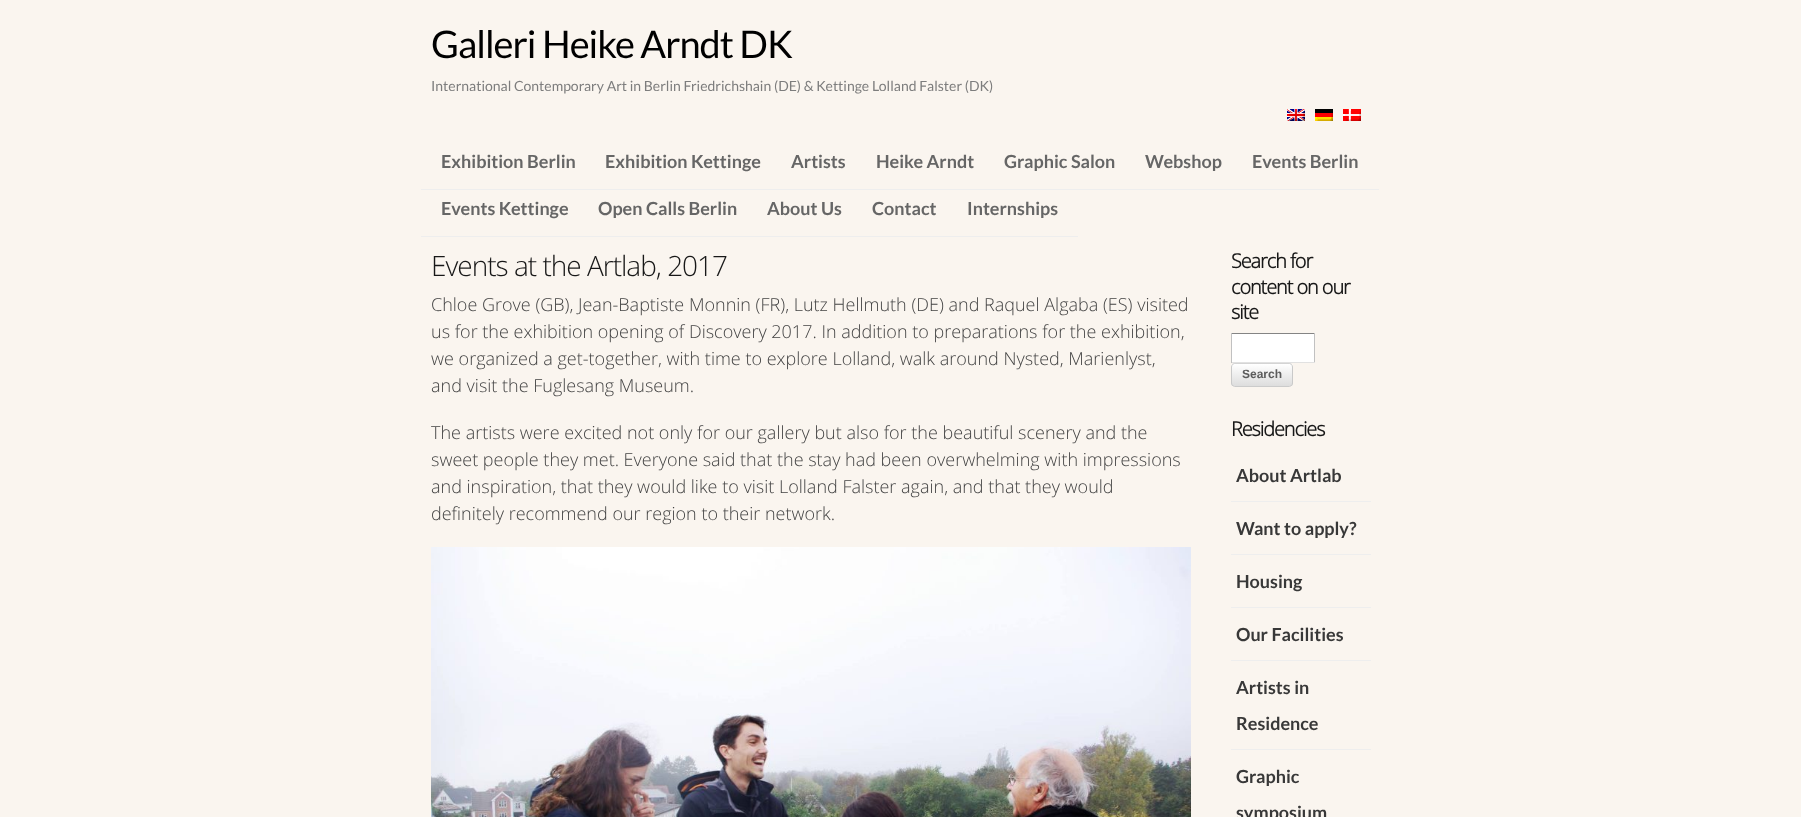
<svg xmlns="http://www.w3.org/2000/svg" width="1801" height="817">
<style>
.a{font:38px Lato;letter-spacing:-1px;fill:#000}
.b{font:14px Lato;fill:#7d7d7d}
.c{font:bold 18px Lato;fill:#666}
.d{font:300 28px Open Sans;letter-spacing:-1px;fill:#181818}
.e{font:300 18px Open Sans;fill:#444}
.f{font:bold 19.75px Open Sans;letter-spacing:-1px;fill:#181818}
.g{font:bold 12px Liberation Sans;fill:#5c5c5c}
.h{font:bold 18px Lato;fill:#383838}
</style>
<defs>
<clipPath id="clip1"><rect x="1231" y="363" width="62" height="24" rx="4"/></clipPath>
<linearGradient id="g1" gradientUnits="userSpaceOnUse" x1="1232" y1="342" x2="1232" y2="364"><stop offset="0" stop-color="#fff"/><stop offset="1" stop-color="#ddd"/></linearGradient>
<linearGradient id="g2" gradientUnits="userSpaceOnUse" x1="1232" y1="364" x2="1232" y2="386"><stop offset="0" stop-color="#fff"/><stop offset="1" stop-color="#ddd"/></linearGradient>
</defs>
<rect width="100%" height="100%" fill="#faf5ef"/>
<image href="1.png" x="1287" y="109" width="18" height="12"/>
<image href="2.png" x="1315" y="109" width="18" height="12"/>
<image href="3.png" x="1343" y="109" width="18" height="12"/>
<path fill="#eee" d="M421 189h958v1H421z"/>
<path fill="#eee" d="M421 236h657v1H421z"/>
<image href="4.png" x="431" y="547" width="760" height="270"/>
<path fill="#fff" d="M1232 334h82v28H1232z"/>
<path fill="#848484" d="M1231 333h84v1H1231z"/>
<path fill="#c1c1c1" d="M1314 333h1v30H1314z"/>
<path fill="#e1e1e1" d="M1231 362h84v1H1231z"/>
<path fill="#c1c1c1" d="M1231 333h1v30H1231z"/>
<g clip-path="url(#clip1)">
<path fill="url(#g1)" d="M1231 363h62v1H1231z"/>
<path fill="url(#g2)" d="M1231 364h62v22H1231z"/>
</g>
<path fill="none" stroke="#d4d4d4" d="M1232.5 364.5l2-1h55l2 1"/>
<path fill="none" stroke="#c9c9c9" d="M1291.5 364.5c.5 .5 1 1.5 1 2.5v16c0 1-.5 2-1 2.5"/>
<path fill="none" stroke="#cbcbcb" d="M1291.5 385.5l-2 1h-55l-2-1"/>
<path fill="none" stroke="#c9c9c9" d="M1232.5 385.5c-.5-.5-1-1.5-1-2.5v-16c0-1 .5-2 1-2.5"/>
<path fill="#eee" d="M1231 501h140v1H1231z"/>
<path fill="#eee" d="M1231 554h140v1H1231z"/>
<path fill="#eee" d="M1231 607h140v1H1231z"/>
<path fill="#eee" d="M1231 660h140v1H1231z"/>
<path fill="#eee" d="M1231 749h140v1H1231z"/>
<text class="a" x="431" y="58">Galleri Heike Arndt DK</text>
<text class="b" x="431" y="91">International Contemporary Art in Berlin Friedrichshain (DE) &amp; Kettinge Lolland Falster (DK)</text>
<text class="c" x="441" y="168">Exhibition Berlin</text>
<text class="c" x="605" y="168">Exhibition Kettinge</text>
<text class="c" x="791" y="168">Artists</text>
<text class="c" x="876" y="168">Heike Arndt</text>
<text class="c" x="1004" y="168">Graphic Salon</text>
<text class="c" x="1145" y="168">Webshop</text>
<text class="c" x="1252" y="168">Events Berlin</text>
<text class="c" x="441" y="215">Events Kettinge</text>
<text class="c" x="598" y="215">Open Calls Berlin</text>
<text class="c" x="767" y="215">About Us</text>
<text class="c" x="872" y="215">Contact</text>
<text class="c" x="967" y="215">Internships</text>
<text class="d" x="431" y="276">Events at the Artlab, 2017</text>
<text class="e" x="431" y="311">Chloe Grove (GB), Jean-Baptiste Monnin (FR), Lutz Hellmuth (DE) and Raquel Algaba (ES) visited</text>
<text class="e" x="431" y="338">us for the exhibition opening of Discovery 2017. In addition to preparations for the exhibition,</text>
<text class="e" x="431" y="365">we organized a get-together, with time to explore Lolland, walk around Nysted, Marienlyst,</text>
<text class="e" x="431" y="392">and visit the Fuglesang Museum.</text>
<text class="e" x="431" y="439">The artists were excited not only for our gallery but also for the beautiful scenery and the</text>
<text class="e" x="431" y="466">sweet people they met. Everyone said that the stay had been overwhelming with impressions</text>
<text class="e" x="431" y="493">and inspiration, that they would like to visit Lolland Falster again, and that they would</text>
<text class="e" x="431" y="520">definitely recommend our region to their network.</text>
<text class="f" x="1231" y="268">Search for</text>
<text class="f" x="1231" y="294">content on our</text>
<text class="f" x="1231" y="319">site</text>
<text class="g" x="1242" y="378">Search</text>
<text class="f" x="1231" y="436">Residencies</text>
<text class="h" x="1236" y="482">About Artlab</text>
<text class="h" x="1236" y="535">Want to apply?</text>
<text class="h" x="1236" y="588">Housing</text>
<text class="h" x="1236" y="641">Our Facilities</text>
<text class="h" x="1236" y="694">Artists in</text>
<text class="h" x="1236" y="730">Residence</text>
<text class="h" x="1236" y="783">Graphic</text>
<text class="h" x="1236" y="819">symposium</text>
</svg>
